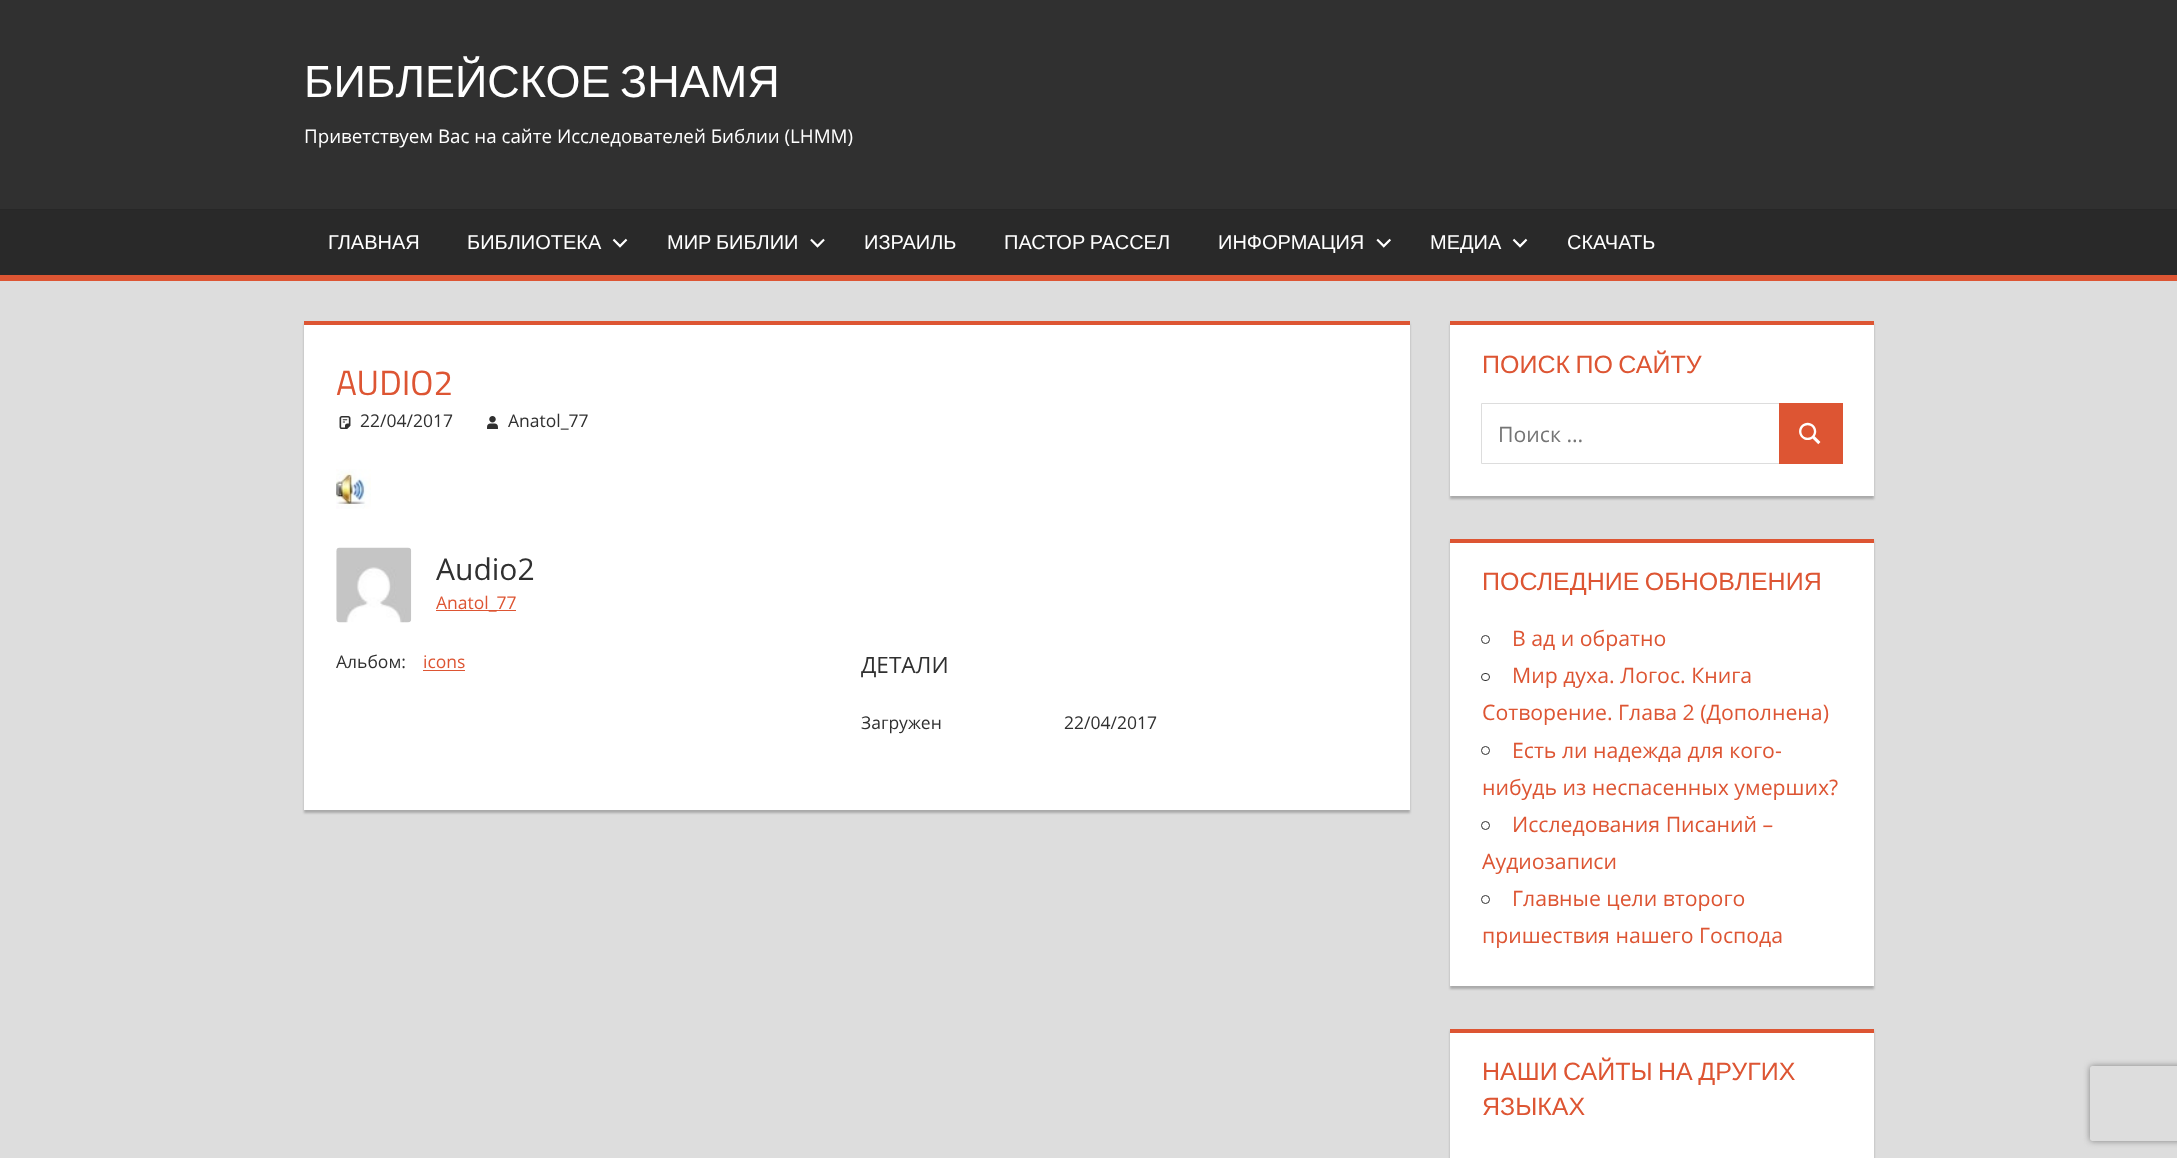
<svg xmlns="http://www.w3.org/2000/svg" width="2177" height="1158">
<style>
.a{font:45px Liberation Sans;fill:#fff}
.b{font:18.75px Open Sans;fill:#fff}
.c{font:20px Liberation Sans;fill:#fff}
.d{font:35px Titillium Web;fill:#d53}
.e{font:17.5px Open Sans;fill:#303030}
.f{font:30px Open Sans;fill:#303030}
.g{font:17.5px Open Sans;fill:#d53}
.h{font:22.5px Open Sans;fill:#303030}
.i{font:25px Liberation Sans;fill:#d53}
.j{font:21.25px Open Sans;fill:#757575}
.k{font:21.25px Open Sans;fill:#d53}
</style>
<defs>
<clipPath id="clip1"><path d="M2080 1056h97v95h-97zm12.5 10h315c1.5 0 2.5 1 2.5 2.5v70c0 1.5-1 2.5-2.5 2.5h-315c-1.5 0-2.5-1-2.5-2.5v-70c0-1.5 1-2.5 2.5-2.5z" clip-rule="evenodd"/></clipPath>
</defs>
<rect width="100%" height="100%" fill="#ddd"/>
<path fill="#303030" d="M0 0h2177v209H0z"/>
<path fill="#292929" d="M0 210h2177v65H0z"/>
<path fill="#272727" d="M0 209h2177v1H0z"/>
<path fill="#d53" d="M0 275h2177v6H0z"/>
<image href="1.png" x="612" y="238" width="16" height="10"/>
<image href="2.png" x="810" y="238" width="15" height="10"/>
<image href="3.png" x="1376" y="238" width="15" height="10"/>
<image href="4.png" x="1512" y="238" width="16" height="10"/>
<path fill="#aaa" filter="blur(1px)" d="M304 324h1106v489H304z"/>
<path fill="#fff" d="M304 325h1106v485H304z"/>
<path fill="#d53" d="M304 321h1106v4H304z"/>
<image href="5.png" x="339" y="416" width="12" height="13"/>
<image href="6.png" x="487" y="416" width="11" height="13"/>
<image href="7.png" x="336" y="469" width="35" height="40"/>
<image href="8.png" x="336" y="547" width="76" height="76"/>
<path fill="#d53" d="M436 610h80v1H436z"/>
<path fill="#d53" d="M423 670h42v1H423z"/>
<path fill="#aaa" filter="blur(1px)" d="M1450 324h424v175H1450z"/>
<path fill="#fff" d="M1450 325h424v171H1450z"/>
<path fill="#d53" d="M1450 321h424v4H1450z"/>
<path fill="none" stroke="#ddd" d="M1481.5 403.5h298v60H1481.5z"/>
<path fill="#d53" d="M1779 403h64v61H1779z"/>
<image href="9.png" x="1799" y="422" width="22" height="23"/>
<path fill="#aaa" filter="blur(1px)" d="M1450 541h424v448H1450z"/>
<path fill="#fff" d="M1450 543h424v443H1450z"/>
<path fill="#d53" d="M1450 539h424v4H1450z"/>
<circle fill="none" stroke="#303030" cx="1485.5" cy="639.5" r="4"/>
<rect fill="none" stroke="#303030" x="1481.5" y="673.5" width="8" height="7" rx="3.5"/>
<circle fill="none" stroke="#303030" cx="1485.5" cy="750.5" r="4"/>
<circle fill="none" stroke="#303030" cx="1485.5" cy="825.5" r="4"/>
<circle fill="none" stroke="#303030" cx="1485.5" cy="899.5" r="4"/>
<path fill="#aaa" filter="blur(1px)" d="M1450 1031h424v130H1450z"/>
<path fill="#fff" d="M1450 1033h424v125H1450z"/>
<path fill="#d53" d="M1450 1029h424v4H1450z"/>
<g clip-path="url(#clip1)">
<rect fill="#808080" filter="blur(3px)" x="2090" y="1066" width="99" height="75" rx="2.5"/>
</g>
<text class="a" x="304" y="97" word-spacing="-3">БИБЛЕЙСКОЕ ЗНАМЯ</text>
<text class="b" x="304" y="143">Приветствуем Вас на сайте Исследователей Библии (LHMM)</text>
<text class="c" x="328" y="249">ГЛАВНАЯ</text>
<text class="c" x="467" y="249">БИБЛИОТЕКА</text>
<text class="c" x="667" y="249" word-spacing="-1">МИР БИБЛИИ</text>
<text class="c" x="864" y="249">ИЗРАИЛЬ</text>
<text class="c" x="1004" y="249" word-spacing="-1">ПАСТОР РАССЕЛ</text>
<text class="c" x="1218" y="249">ИНФОРМАЦИЯ</text>
<text class="c" x="1430" y="249">МЕДИА</text>
<text class="c" x="1567" y="249">СКАЧАТЬ</text>
<text class="d" x="336" y="395">AUDIO2</text>
<text class="e" x="360" y="427">22/04/2017</text>
<text class="e" x="508" y="427">Anatol_77</text>
<text class="f" x="436" y="580">Audio2</text>
<text class="g" x="436" y="609">Anatol_77</text>
<text class="e" x="336" y="668">Альбом:</text>
<text class="g" x="423" y="668">icons</text>
<text class="h" x="861" y="673">ДЕТАЛИ</text>
<text class="e" x="861" y="729">Загружен</text>
<text class="e" x="1064" y="729">22/04/2017</text>
<text class="i" x="1482" y="373" word-spacing="-1.5">ПОИСК ПО САЙТУ</text>
<text class="j" x="1498" y="442">Поиск …</text>
<text class="i" x="1482" y="590" word-spacing="-1.5">ПОСЛЕДНИЕ ОБНОВЛЕНИЯ</text>
<text class="k" x="1512" y="646">В ад и обратно</text>
<text class="k" x="1512" y="683">Мир духа. Логос. Книга</text>
<text class="k" x="1482" y="720">Сотворение. Глава 2 (Дополнена)</text>
<text class="k" x="1512" y="758">Есть ли надежда для кого-</text>
<text class="k" x="1482" y="795">нибудь из неспасенных умерших?</text>
<text class="k" x="1512" y="832">Исследования Писаний –</text>
<text class="k" x="1482" y="869">Аудиозаписи</text>
<text class="k" x="1512" y="906">Главные цели второго</text>
<text class="k" x="1482" y="943">пришествия нашего Господа</text>
<text class="i" x="1482" y="1080" word-spacing="-1.5">НАШИ САЙТЫ НА ДРУГИХ</text>
<text class="i" x="1482" y="1115">ЯЗЫКАХ</text>
</svg>
